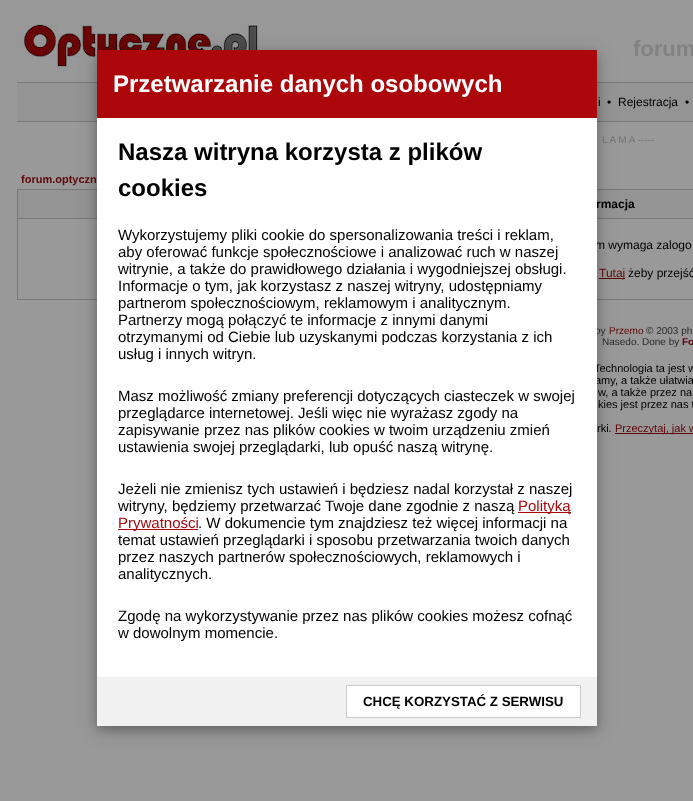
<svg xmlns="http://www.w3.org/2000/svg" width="693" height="801">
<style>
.a{font:bold 22px Liberation Sans;fill:#828282}
.b{font:12px Liberation Sans;fill:#000}
.c{font:10px Liberation Sans;fill:#737373}
.d{font:bold 11px Liberation Sans;fill:#5e0608}
.e{font:bold 12px Liberation Sans;fill:#000}
.f{font:12px Liberation Sans;fill:#5e0608}
.g{font:10px Liberation Sans;fill:#292929}
.h{font:10px Liberation Sans;fill:#5e0608}
.i{font:bold 10px Liberation Sans;fill:#5e0608}
.j{font:11px Liberation Sans;fill:#000}
.k{font:11px Liberation Sans;fill:#5e0608}
.l{font:bold 24px Liberation Sans;fill:#fff}
.m{font:bold 24px Liberation Sans;fill:#000}
.n{font:15px Liberation Sans;fill:#000}
.o{font:15px Liberation Sans;fill:#ac070b}
.p{font:bold 13.3px Liberation Sans;fill:#000}
</style>
<rect width="100%" height="100%" fill="#999"/>
<image href="1.png" x="18" y="24" width="240" height="49"/>
<path fill="#949494" d="M17 83h676v38H17z"/>
<path fill="#787878" d="M17 82h676v1H17z"/>
<path fill="#787878" d="M17 121h676v1H17z"/>
<path fill="#787878" d="M17 189h676v111H17z"/>
<path fill="#949494" d="M18 190h675v28H18z"/>
<path fill="#999" d="M18 219h675v80H18z"/>
<path fill="#5e0608" d="M599 278h26v1H599z"/>
<path fill="#5e0608" d="M615 433h78v1H615z"/>
<path fill="#00000030" filter="blur(10px)" d="M97 54h500v676H97z"/>
<path fill="#00000033" filter="blur(5px)" d="M97 54h500v676H97z"/>
<path fill="#ac070b" d="M97 50h500v68H97z"/>
<path fill="#f1f1f1" d="M97 677h500v49H97z"/>
<path fill="#fff" stroke="#ccc" d="M346.5 685.5h234v32H346.5z"/>
<text class="a" x="633" y="56">forum</text>
<text class="b" x="598" y="106">i</text>
<text class="b" x="607" y="106">•</text>
<text class="b" x="618" y="106">Rejestracja</text>
<text class="b" x="685" y="106">•</text>
<text class="c" x="602" y="143">L A M A -----</text>
<text class="d" x="21" y="183">forum.optyczn</text>
<text class="e" x="596" y="208">rmacja</text>
<text class="b" x="595" y="249">m wymaga zalogo</text>
<text class="f" x="599" y="277">Tutaj</text>
<text class="b" x="628" y="277">żeby przejść</text>
<text class="g" x="595" y="334">by</text>
<text class="h" x="609" y="334">Przemo</text>
<text class="g" x="646" y="334">© 2003 ph</text>
<text class="g" x="602" y="345">Nasedo. Done by</text>
<text class="i" x="682" y="345">Fo</text>
<text class="j" x="594" y="372">Technologia ta jest w</text>
<text class="j" x="595" y="384">amy, a także ułatwia</text>
<text class="j" x="598" y="396">w, a także przez na</text>
<text class="j" x="598" y="408">kies jest przez nas t</text>
<text class="j" x="597" y="432">rki.</text>
<text class="k" x="615" y="432">Przeczytaj, jak w</text>
<path fill="#fff" d="M97 118h500v559H97z"/>
<text class="l" x="113" y="92">Przetwarzanie danych osobowych</text>
<text class="m" x="118" y="160">Nasza witryna korzysta z plików</text>
<text class="m" x="118" y="196">cookies</text>
<text class="n" x="118" y="240">Wykorzystujemy pliki cookie do spersonalizowania treści i reklam,</text>
<text class="n" x="118" y="257">aby oferować funkcje społecznościowe i analizować ruch w naszej</text>
<text class="n" x="118" y="274">witrynie, a także do prawidłowego działania i wygodniejszej obsługi.</text>
<text class="n" x="118" y="291">Informacje o tym, jak korzystasz z naszej witryny, udostępniamy</text>
<text class="n" x="118" y="308">partnerom społecznościowym, reklamowym i analitycznym.</text>
<text class="n" x="118" y="325">Partnerzy mogą połączyć te informacje z innymi danymi</text>
<text class="n" x="118" y="342">otrzymanymi od Ciebie lub uzyskanymi podczas korzystania z ich</text>
<text class="n" x="118" y="359">usług i innych witryn.</text>
<text class="n" x="118" y="401">Masz możliwość zmiany preferencji dotyczących ciasteczek w swojej</text>
<text class="n" x="118" y="418">przeglądarce internetowej. Jeśli więc nie wyrażasz zgody na</text>
<text class="n" x="118" y="435">zapisywanie przez nas plików cookies w twoim urządzeniu zmień</text>
<text class="n" x="118" y="452">ustawienia swojej przeglądarki, lub opuść naszą witrynę.</text>
<text class="n" x="118" y="494">Jeżeli nie zmienisz tych ustawień i będziesz nadal korzystał z naszej</text>
<text class="n" x="118" y="511">witryny, będziemy przetwarzać Twoje dane zgodnie z naszą</text>
<path fill="#ac070b" d="M518 512h53v1H518z"/>
<text class="o" x="518" y="511">Polityką</text>
<path fill="#ac070b" d="M118 529h80v1H118z"/>
<text class="o" x="118" y="528">Prywatności</text>
<text class="n" x="198" y="528">. W dokumencie tym znajdziesz też więcej informacji na</text>
<text class="n" x="118" y="545">temat ustawień przeglądarki i sposobu przetwarzania twoich danych</text>
<text class="n" x="118" y="562">przez naszych partnerów społecznościowych, reklamowych i</text>
<text class="n" x="118" y="579">analitycznych.</text>
<text class="n" x="118" y="621">Zgodę na wykorzystywanie przez nas plików cookies możesz cofnąć</text>
<text class="n" x="118" y="638">w dowolnym momencie.</text>
<text class="p" x="363" y="706">CHCĘ KORZYSTAĆ Z SERWISU</text>
</svg>
